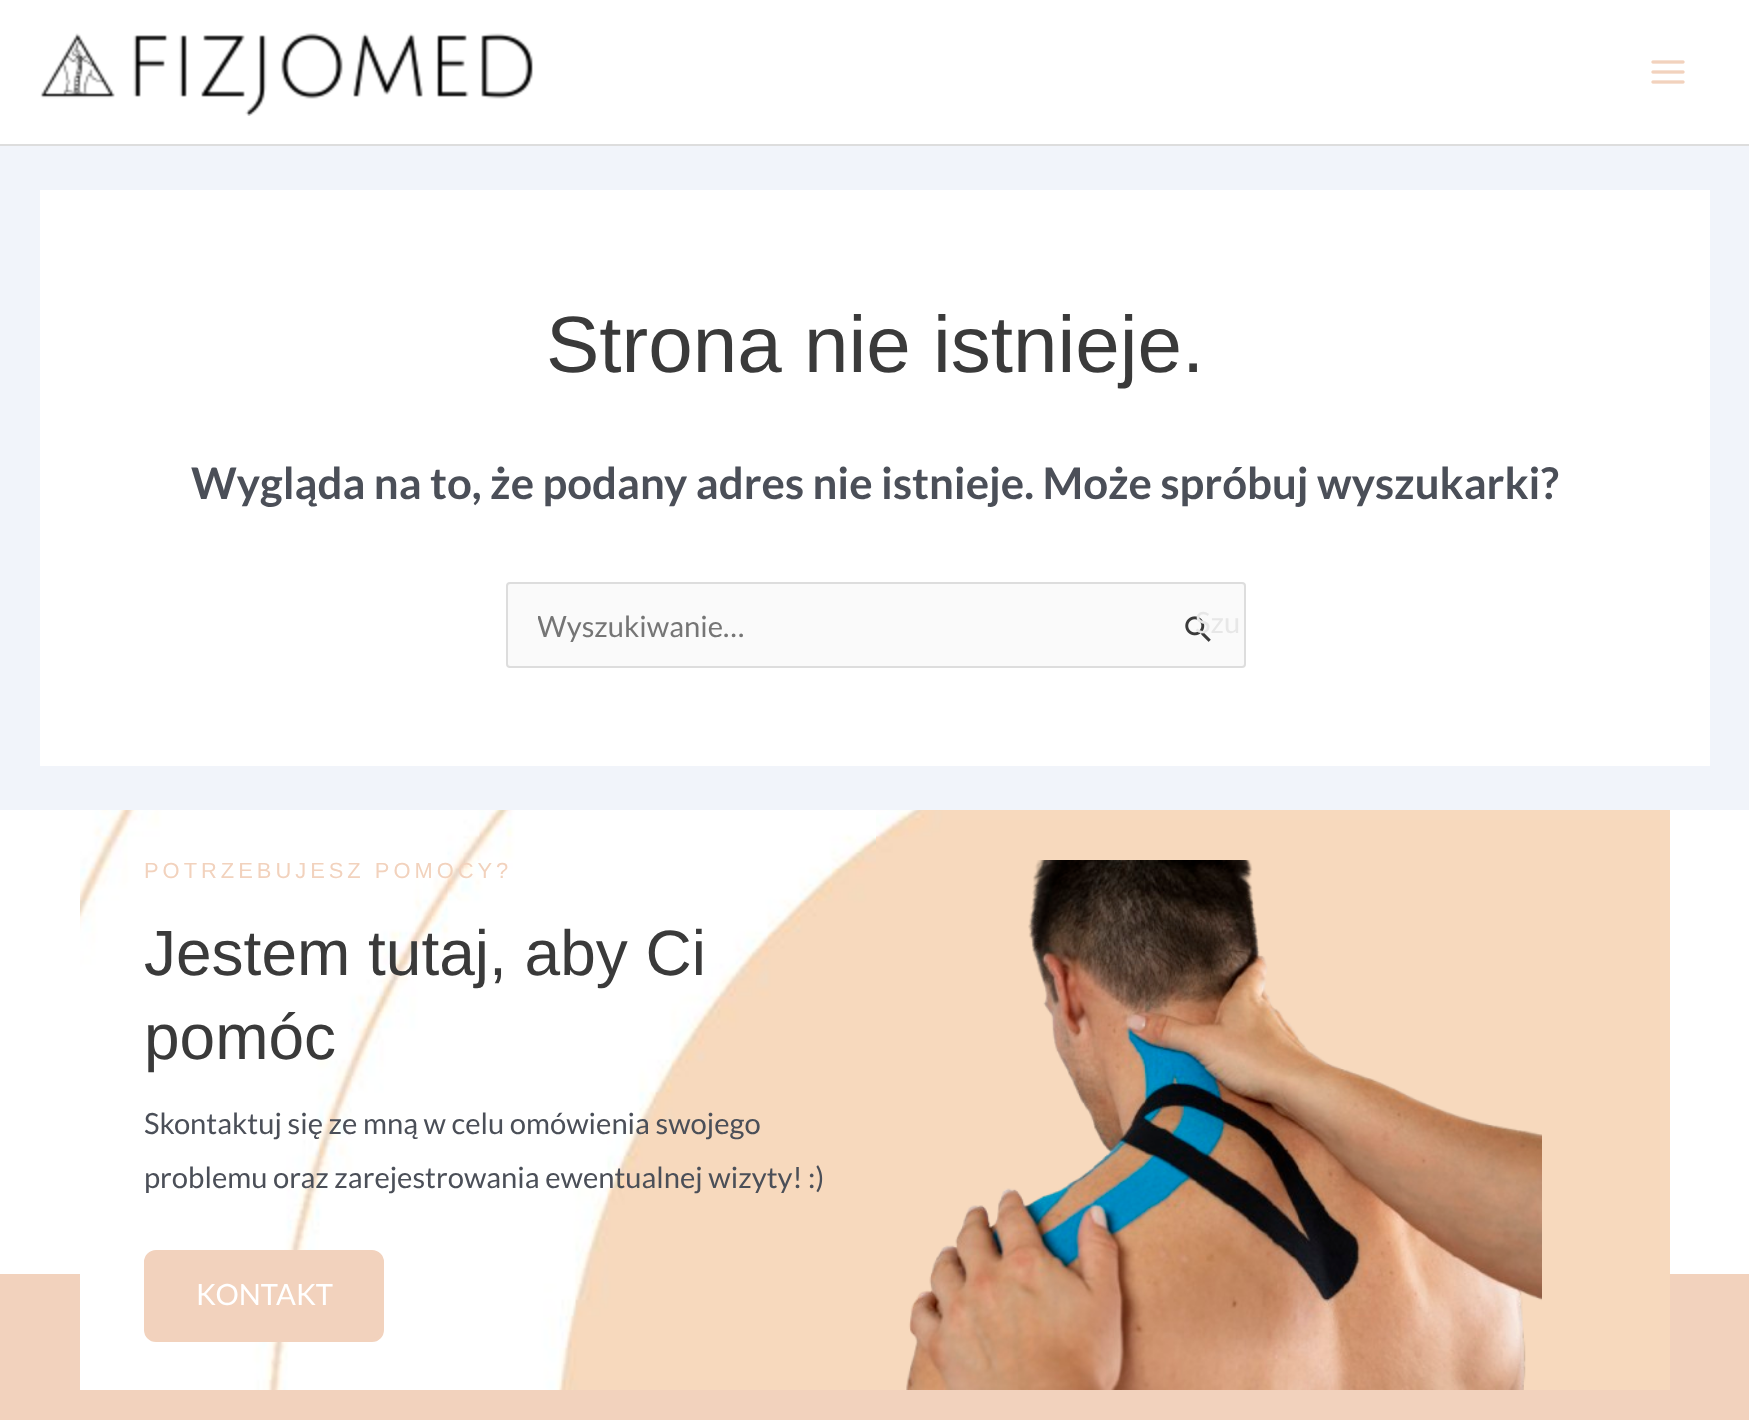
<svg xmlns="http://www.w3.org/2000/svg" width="1749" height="1420">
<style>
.a{font:80px Liberation Sans;fill:#3a3a3a}
.b{font:bold 43.75px Lato;fill:#4b4f58}
.c{font:29.2px Lato;fill:#757575}
.d{font:29.2px Lato;fill:#e7e7e7}
.e{font:21.9px Liberation Sans;letter-spacing:4px;fill:#f2d2bd}
.f{font:64px Liberation Sans;fill:#3a3a3a}
.g{font:29.2px Lato;fill:#4b4f58}
.h{font:29.2px Lato;fill:#fff}
</style>
<defs>
<clipPath id="clip1"><path d="M538 608h608v34H538z"/></clipPath>
</defs>
<rect width="100%" height="100%" fill="#f1f4fa"/>
<path fill="#fff" d="M0 0h1749v144H0z"/>
<path fill="#ddd" d="M0 144h1749v2H0z"/>
<image href="1.png" x="40" y="33" width="493" height="83"/>
<image href="2.png" x="1651" y="60" width="34" height="24"/>
<path fill="#fff" d="M40 190h1670v576H40z"/>
<rect fill="#fafafa" stroke="#ddd" stroke-width="2" x="507" y="583" width="738" height="84" rx="3"/>
<image href="3.png" x="1185" y="616" width="26" height="26"/>
<path fill="#fff" d="M0 810h1749v464H0z"/>
<path fill="#f2d2bd" d="M0 1274h1749v146H0z"/>
<image href="4.png" x="80" y="810" width="796" height="580"/>
<rect fill="#f2d2bd" stroke="#f2d2bd" stroke-width="4" x="146" y="1252" width="236" height="88" rx="10"/>
<image href="5.png" x="876" y="810" width="794" height="580"/>
<image href="6.png" x="906" y="860" width="636" height="530"/>
<text class="a" x="546" y="372">Strona nie istnieje.</text>
<text class="b" x="191" y="499">Wygląda na to, że podany adres nie istnieje. Może spróbuj wyszukarki?</text>
<g clip-path="url(#clip1)">
<text class="c" x="537" y="637">Wyszukiwanie…</text>
</g>
<text class="d" x="1195" y="633">Szu</text>
<text class="e" x="144" y="878">POTRZEBUJESZ POMOCY?</text>
<text class="f" x="144" y="975">Jestem tutaj, aby Ci</text>
<text class="f" x="144" y="1059">pomóc</text>
<text class="g" x="144" y="1134">Skontaktuj się ze mną w celu omówienia swojego</text>
<text class="g" x="144" y="1188">problemu oraz zarejestrowania ewentualnej wizyty! :)</text>
<text class="h" x="196" y="1305">KONTAKT</text>
</svg>
